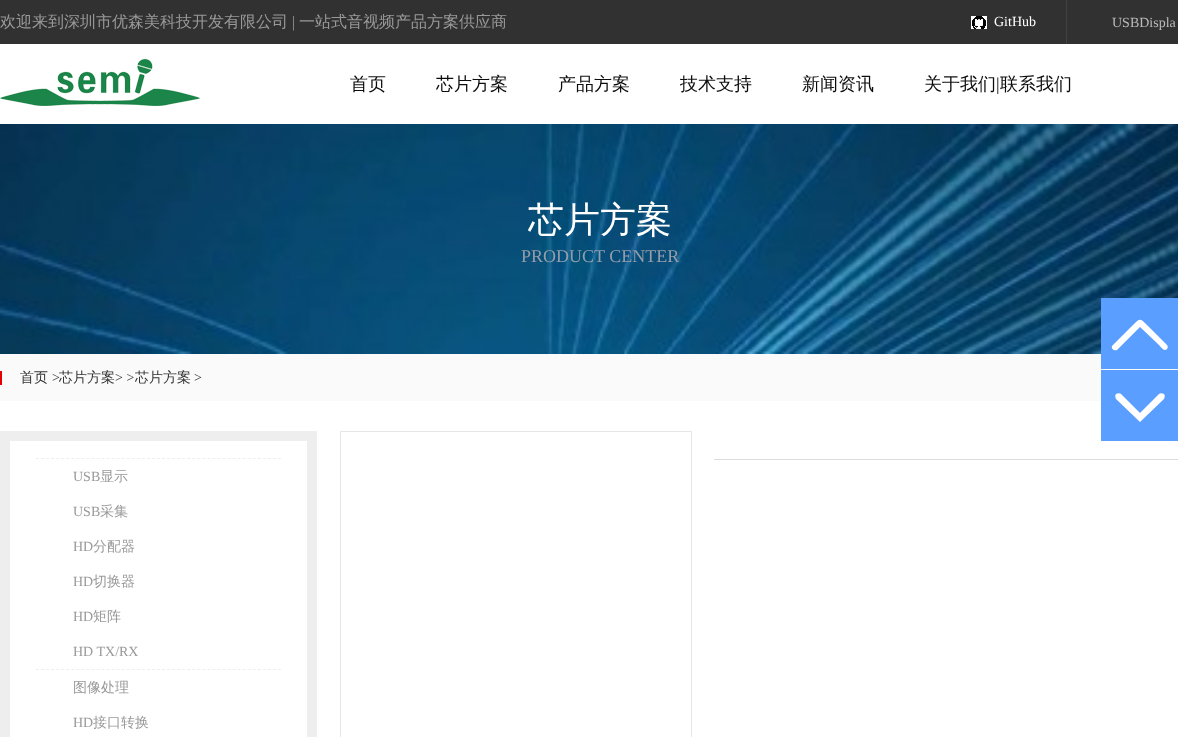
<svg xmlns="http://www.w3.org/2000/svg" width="1178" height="737">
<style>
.a{font:500 16px WenQuanYi Zen Hei;fill:#999}
.b{font:16px Liberation Serif;fill:#999}
.c{font:14px Liberation Serif;fill:#fff}
.d{font:14px Liberation Serif;fill:#bbb}
.e{font:500 18px WenQuanYi Zen Hei;fill:#0c0c0c}
.f{font:18px Liberation Serif;fill:#0c0c0c}
.g{font:500 36px WenQuanYi Zen Hei;fill:#fff}
.h{font:18px Liberation Serif;fill:#949daa}
.i{font:500 14px WenQuanYi Zen Hei;fill:#333}
.j{font:14px Liberation Serif;fill:#333}
.k{font:14px Liberation Serif;fill:#999}
.l{font:500 14px WenQuanYi Zen Hei;fill:#999}
</style>
<rect width="100%" height="100%" fill="#fff"/>
<path fill="#313131" d="M0 0h1178v44H0z"/>
<image href="1.png" x="971" y="16" width="16" height="13"/>
<path fill="#424242" d="M1066 0h1v44H1066z"/>
<image href="2.png" x="0" y="59" width="200" height="47"/>
<image href="3.png" x="0" y="124" width="1178" height="230"/>
<path fill="#fafafa" d="M0 354h1178v47H0z"/>
<path fill="#e20002" d="M0 371h2v14H0z"/>
<path fill="#5a9eff" d="M1101 298h77v71H1101z"/>
<path fill="#fff" d="M1167 345c1 1 1 3 0 4c-3 3-6-2-8-4l-19-18l-23 23c-3 1-6-1-5-4l21-21c7-7 7-7 14 0z"/>
<path fill="#5a9eff" d="M1101 370h77v71H1101z"/>
<path fill="#fff" d="M1140 422l-24-23c-1-2-1-4 0-5c2-1 4-1 5 0l19 19l19-19c1-1 3-1 5 0c1 1 1 3 0 5z"/>
<path fill="none" stroke="#eee" stroke-width="10" d="M5 436h307v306H5z"/>
<path fill="none" stroke="#eee" stroke-dasharray="3 2.04" d="M36 458.5h245"/>
<path fill="none" stroke="#eee" stroke-dasharray="3 2.04" d="M36 669.5h245"/>
<path fill="none" stroke="#e6e6e6" d="M340.5 431.5h351v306H340.5z"/>
<path fill="#ddd" d="M714 459h464v1H714z"/>
<text class="a" x="0" y="27">欢迎来到深圳市优森美科技开发有限公司</text>
<text class="b" x="292" y="27">|</text>
<text class="a" x="299" y="27">一站式音视频产品方案供应商</text>
<text class="c" x="994" y="26">GitHub</text>
<text class="d" x="1112" y="27">USBDispla</text>
<text class="e" x="350" y="90">首页</text>
<text class="e" x="436" y="90">芯片方案</text>
<text class="e" x="558" y="90">产品方案</text>
<text class="e" x="680" y="90">技术支持</text>
<text class="e" x="802" y="90">新闻资讯</text>
<text class="e" x="924" y="90">关于我们</text>
<text class="f" x="996" y="90">|</text>
<text class="e" x="1000" y="90">联系我们</text>
<text class="g" x="528" y="232">芯片方案</text>
<text class="h" x="521" y="262">PRODUCT CENTER</text>
<text class="i" x="20" y="382">首页</text>
<text class="j" x="52" y="382">&gt;</text>
<text class="i" x="59" y="382">芯片方案</text>
<text class="j" x="115" y="382">&gt; &gt;</text>
<text class="i" x="135" y="382">芯片方案</text>
<text class="j" x="194" y="382">&gt;</text>
<text class="k" x="73" y="481">USB</text>
<text class="l" x="100" y="481">显示</text>
<text class="k" x="73" y="516">USB</text>
<text class="l" x="100" y="516">采集</text>
<text class="k" x="73" y="551">HD</text>
<text class="l" x="93" y="551">分配器</text>
<text class="k" x="73" y="586">HD</text>
<text class="l" x="93" y="586">切换器</text>
<text class="k" x="73" y="621">HD</text>
<text class="l" x="93" y="621">矩阵</text>
<text class="k" x="73" y="656">HD TX/RX</text>
<text class="l" x="73" y="692">图像处理</text>
<text class="k" x="73" y="727">HD</text>
<text class="l" x="93" y="727">接口转换</text>
</svg>
